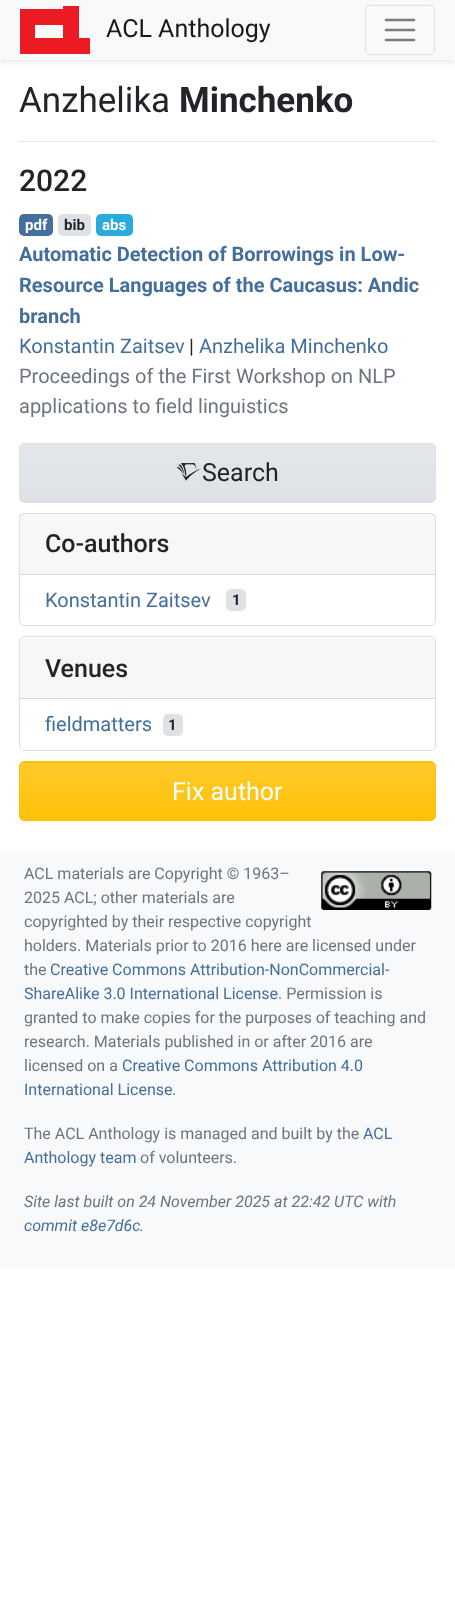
<svg xmlns="http://www.w3.org/2000/svg" width="455" height="1621">
<style>
.a{font:25px Roboto;fill:#191919}
.b{font:35px Roboto;fill:#212529}
.c{font:bold 35px Roboto;fill:#212529}
.d{font:500 30px Roboto;fill:#212529}
.e{font:bold 15px Roboto;fill:#fff}
.f{font:bold 15px Roboto;fill:#212529}
.g{font:bold 20px Roboto;fill:#446e9b}
.h{font:20px Roboto;fill:#446e9b}
.i{font:20px Roboto;fill:#212529}
.j{font:20px Roboto;fill:#6c757d}
.k{font:25px Roboto;fill:#212529}
.l{font:500 25px Roboto;fill:#212529}
.m{font:25px Roboto;fill:#fff}
.n{font:16px Roboto;fill:#6c757d}
.o{font:16px Roboto;fill:#446e9b}
.p{font:italic 16px Roboto;fill:#6c757d}
.q{font:italic 16px Roboto;fill:#446e9b}
</style>
<defs>
<clipPath id="clip1"><rect x="19" y="443" width="417" height="60" rx="6"/></clipPath>
<linearGradient id="g1" gradientUnits="userSpaceOnUse" x1="228" y1="444" x2="228" y2="501"><stop offset="0" stop-color="#e3e6ea"/><stop offset="1" stop-color="#dee2e6"/></linearGradient>
<clipPath id="clip2"><rect x="19" y="761" width="417" height="60" rx="6"/></clipPath>
<linearGradient id="g2" gradientUnits="userSpaceOnUse" x1="228" y1="763" x2="228" y2="820"><stop offset="0" stop-color="#ffca2c"/><stop offset="1" stop-color="#ffc107"/></linearGradient>
</defs>
<rect width="100%" height="100%" fill="#fff"/>
<path fill="#00000012" filter="blur(2.5px)" d="M0 3h455v60H0z"/>
<path fill="#f8f9fa" d="M0 0h455v60H0z"/>
<path fill="#ed1c24" fill-rule="evenodd" d="M63 6v3h-43v45h70v-16h-11v-32zm-28 19h28v13h-28z"/>
<rect fill="none" stroke="#dfe0e1" x="365.5" y="5.5" width="69" height="49" rx="4.5"/>
<path fill="none" stroke="#7c7d7d" stroke-width="2.5" stroke-linecap="round" d="M386 20h28m-28 10h28m-28 10h28"/>
<path fill="#e6e6e6" d="M19 141h417v1H19z"/>
<rect fill="#446e9b" x="19" y="214" width="34" height="22" rx="5"/>
<rect fill="#dee2e6" x="58" y="214" width="33" height="22" rx="5"/>
<rect fill="#29abe0" x="96" y="214" width="37" height="22" rx="5"/>
<rect fill="#dee2e6" x="19" y="443" width="417" height="60" rx="6"/>
<g clip-path="url(#clip1)">
<path fill="url(#g1)" d="M19 444h417v57H19z"/>
</g>
<rect fill="none" stroke="#dee2e6" x="19.5" y="443.5" width="416" height="59" rx="5.5"/>
<image href="1.png" x="176" y="463" width="25" height="18"/>
<rect fill="none" stroke="#dfdfdf" x="19.5" y="513.5" width="416" height="112" rx="4.5"/>
<path fill="#00000008" d="M20 514h415v60H20z"/>
<path fill="#d8d8d8" d="M20 574h415v1H20z"/>
<path fill="#fff" d="M20 575h415v45c0 3-2 5-5 5h-405c-3 0-5-2-5-5z"/>
<rect fill="#dee2e6" x="226" y="589" width="20" height="22" rx="5"/>
<rect fill="none" stroke="#dfdfdf" x="19.5" y="636.5" width="416" height="114" rx="4.5"/>
<path fill="#f7f7f7" d="M24 638h407c2 0 4 2 4 4v57h-415v-57c0-2 2-4 4-4z"/>
<path fill="#d8d8d8" d="M20 698h415v1H20z"/>
<path fill="#fff" d="M20 699h415v46c0 3-2 5-5 5h-405c-3 0-5-2-5-5z"/>
<rect fill="#dee2e6" x="163" y="714" width="20" height="22" rx="5"/>
<rect fill="#ffc107" x="19" y="761" width="417" height="60" rx="6"/>
<g clip-path="url(#clip2)">
<path fill="url(#g2)" d="M19 763h417v57H19z"/>
</g>
<rect fill="none" stroke="#ffc107" x="19.5" y="761.5" width="416" height="59" rx="5.5"/>
<path fill="#f8f9fa" d="M0 851h455v417H0z"/>
<image href="2.png" x="321" y="871" width="111" height="39"/>
<text class="a" x="106" y="37">ACL Anthology</text>
<text class="b" x="19" y="112">Anzhelika</text>
<text class="c" x="179" y="112">Minchenko</text>
<text class="d" x="19" y="191">2022</text>
<text class="e" x="25" y="230">pdf</text>
<text class="f" x="64" y="230">bib</text>
<text class="e" x="102" y="230">abs</text>
<text class="g" x="19" y="261">Automatic Detection of Borrowings in Low-</text>
<text class="g" x="19" y="292">Resource Languages of the Caucasus: A</text>
<text class="g" x="381" y="292">ndic</text>
<text class="g" x="19" y="323">branch</text>
<text class="h" x="19" y="353">Konstantin Zaitsev</text>
<text class="i" x="189" y="353">|</text>
<text class="h" x="199" y="353">Anzhelika Minchenko</text>
<text class="j" x="19" y="383">Proceedings of the First Workshop on NLP</text>
<text class="j" x="19" y="413">applications to field linguistics</text>
<text class="k" x="202" y="481">Search</text>
<text class="l" x="45" y="552">Co-authors</text>
<text class="h" x="45" y="607">Konstantin Zaitsev</text>
<text class="f" x="232" y="605">1</text>
<text class="l" x="45" y="677">Venues</text>
<text class="h" x="45" y="731">fieldmatters</text>
<text class="f" x="168" y="730">1</text>
<text class="m" x="172" y="800">Fix author</text>
<text class="n" x="24" y="879">ACL materials are Copyright © 1963–</text>
<text class="n" x="24" y="903">2025 ACL; other materials are</text>
<text class="n" x="24" y="927">copyrighted by their respective copyright</text>
<text class="n" x="24" y="951">holders. Materials prior to 2016 here are licensed under</text>
<text class="n" x="24" y="975">the</text>
<text class="o" x="50" y="975">Creative Commons Attribution-NonCommercial-</text>
<text class="o" x="24" y="999">ShareAlike 3.0 International License</text>
<text class="n" x="278" y="999">. Permission is</text>
<text class="n" x="24" y="1023">granted to make copies for the purposes of teaching and</text>
<text class="n" x="24" y="1047">research. Materials published in or after 2016 are</text>
<text class="n" x="24" y="1071">licensed on a</text>
<text class="o" x="122" y="1071">Creative Commons Attribution 4.0</text>
<text class="o" x="24" y="1095">International License</text>
<text class="n" x="172" y="1095">.</text>
<text class="n" x="24" y="1139">The ACL Anthology is managed and built by the</text>
<text class="o" x="363" y="1139">ACL</text>
<text class="o" x="24" y="1163">Anthology team</text>
<text class="n" x="140" y="1163">of volunteers.</text>
<text class="p" x="24" y="1207">Site last built on 24 November 2025 at 22:42 UTC with</text>
<text class="q" x="24" y="1231">commit e8e7d6c</text>
<text class="p" x="140" y="1231">.</text>
</svg>
